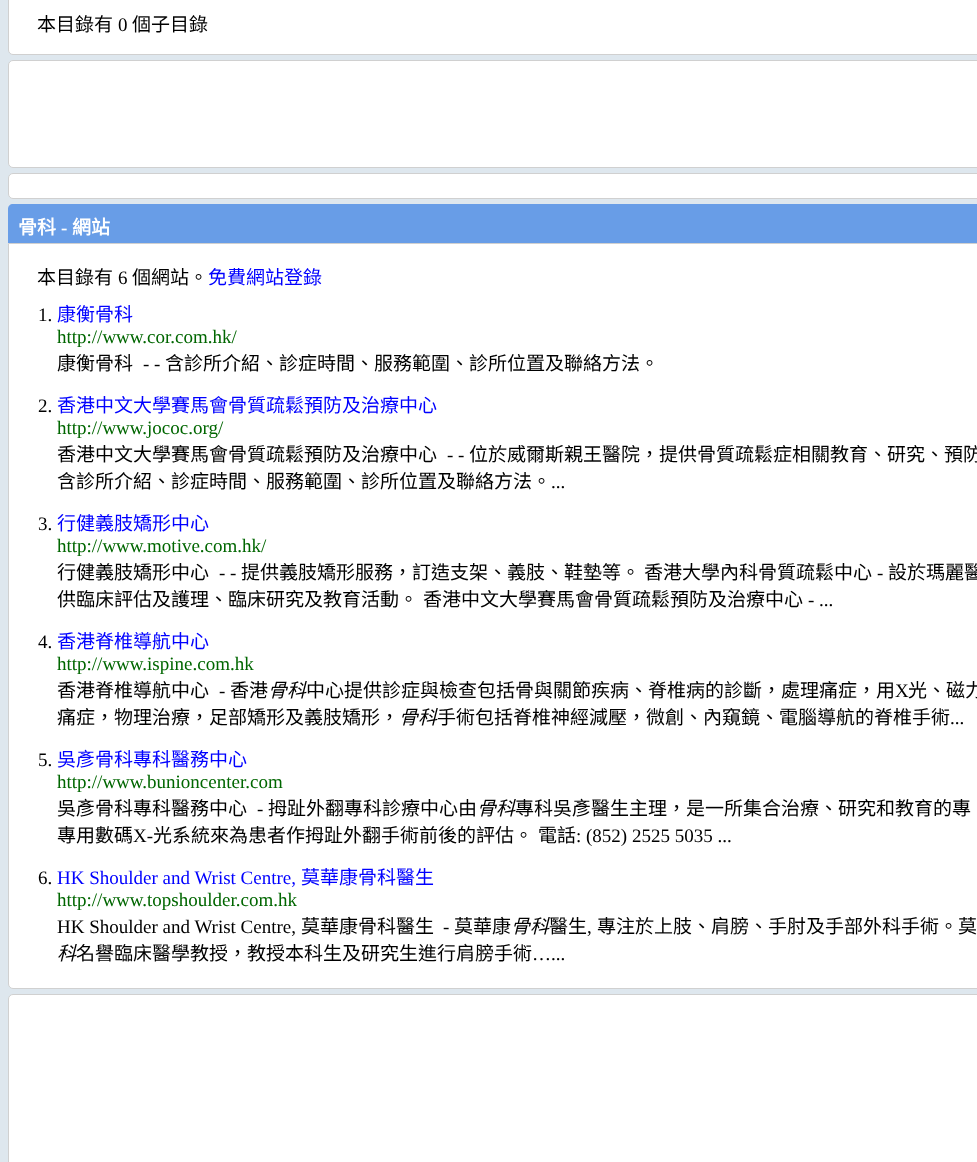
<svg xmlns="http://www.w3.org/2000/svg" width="977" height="1162">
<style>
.a{font:19px Noto Sans CJK HK;fill:#000}
.b{font:19px Liberation Serif;fill:#000}
.c{font:bold 19px Noto Sans CJK HK;fill:#fff}
.d{font:bold 19px Liberation Serif;fill:#fff}
.e{font:19px Noto Sans CJK HK;fill:#00f}
.f{font:19px Liberation Serif;fill:#060}
.g{font:italic 19px Noto Sans CJK HK;fill:#000}
.h{font:19px Liberation Serif;fill:#00f}
</style>
<rect width="100%" height="100%" fill="#dee7ee"/>
<path fill="#fff" stroke="#d0d0d0" d="M8.5-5.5h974v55.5c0 2.5-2 4.5-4.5 4.5h-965c-2.5 0-4.5-2-4.5-4.5z"/>
<rect fill="#fff" stroke="#d0d0d0" x="8.5" y="60.5" width="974" height="107" rx="4.5"/>
<rect fill="#fff" stroke="#d0d0d0" x="8.5" y="173.5" width="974" height="25" rx="4.5"/>
<path fill="#689de7" d="M13 204h964c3 0 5 2 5 5v34h-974v-34c0-3 2-5 5-5z"/>
<path fill="#fff" stroke="#d0d0d0" d="M8.5 243.5h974v740.5c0 2.5-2 4.5-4.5 4.5h-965c-2.5 0-4.5-2-4.5-4.5z"/>
<rect fill="#fff" stroke="#d0d0d0" x="8.5" y="994.5" width="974" height="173" rx="4.5"/>
<text class="a" x="37" y="31">本目錄有</text>
<text class="b" x="118" y="31">0</text>
<text class="a" x="132" y="31">個子目錄</text>
<text class="c" x="18" y="234">骨科</text>
<text class="d" x="61" y="234">-</text>
<text class="c" x="72" y="234">網站</text>
<text class="a" x="37" y="284">本目錄有</text>
<text class="b" x="118" y="284">6</text>
<text class="a" x="132" y="284">個網站。</text>
<text class="e" x="208" y="284">免費網站登錄</text>
<text class="b" x="38" y="321">1.</text>
<text class="e" x="57" y="321">康衡骨科</text>
<text class="f" x="57" y="343">http://www.cor.com.hk/</text>
<text class="a" x="57" y="370">康衡骨科</text>
<text class="b" x="143" y="370">- -</text>
<text class="a" x="165" y="370">含診所介紹、診症時間、服務範圍、診所位置及聯絡方法。</text>
<text class="b" x="38" y="412">2.</text>
<text class="e" x="57" y="412">香港中文大學賽馬會骨質疏鬆預防及治療中心</text>
<text class="f" x="57" y="434">http://www.jococ.org/</text>
<text class="a" x="57" y="461">香港中文大學賽馬會骨質疏鬆預防及治療中心</text>
<text class="b" x="447" y="461">- -</text>
<text class="a" x="469" y="461">位於威爾斯親王醫院，提供骨質疏鬆症相關教育、研究、預防</text>
<text class="a" x="57" y="488">含診所介紹、診症時間、服務範圍、診所位置及聯絡方法。</text>
<text class="b" x="551" y="488">...</text>
<text class="b" x="38" y="530">3.</text>
<text class="e" x="57" y="530">行健義肢矯形中心</text>
<text class="f" x="57" y="552">http://www.motive.com.hk/</text>
<text class="a" x="57" y="579">行健義肢矯形中心</text>
<text class="b" x="219" y="579">- -</text>
<text class="a" x="241" y="579">提供義肢矯形服務，訂造支架、義肢、鞋墊等。</text>
<text class="a" x="644" y="579">香港大學內科骨質疏鬆中心</text>
<text class="b" x="877" y="579">-</text>
<text class="a" x="888" y="579">設於瑪麗醫</text>
<text class="a" x="57" y="606">供臨床評估及護理、臨床研究及教育活動。</text>
<text class="a" x="423" y="606">香港中文大學賽馬會骨質疏鬆預防及治療中心</text>
<text class="b" x="808" y="606">- ...</text>
<text class="b" x="38" y="648">4.</text>
<text class="e" x="57" y="648">香港脊椎導航中心</text>
<text class="f" x="57" y="670">http://www.ispine.com.hk</text>
<text class="a" x="57" y="697">香港脊椎導航中心</text>
<text class="b" x="219" y="697">-</text>
<text class="a" x="230" y="697">香港</text>
<text class="g" x="268" y="697">骨科</text>
<text class="a" x="306" y="697">中心提供診症與檢查包括骨與關節疾病、脊椎病的診斷，處理痛症，用</text>
<text class="b" x="895" y="697">X</text>
<text class="a" x="908" y="697">光、磁力</text>
<text class="a" x="57" y="724">痛症，物理治療，足部矯形及義肢矯形，</text>
<text class="g" x="399" y="724">骨科</text>
<text class="a" x="437" y="724">手術包括脊椎神經減壓，微創、內窺鏡、電腦導航的脊椎手術</text>
<text class="b" x="950" y="724">...</text>
<text class="b" x="38" y="766">5.</text>
<text class="e" x="57" y="766">吳彥骨科專科醫務中心</text>
<text class="f" x="57" y="788">http://www.bunioncenter.com</text>
<text class="a" x="57" y="815">吳彥骨科專科醫務中心</text>
<text class="b" x="257" y="815">-</text>
<text class="a" x="268" y="815">拇趾外翻專科診療中心由</text>
<text class="g" x="477" y="815">骨科</text>
<text class="a" x="515" y="815">專科吳彥醫生主理，是一所集合治療、研究和教育的專</text>
<text class="a" x="57" y="842">專用數碼</text>
<text class="b" x="133" y="842">X-</text>
<text class="a" x="153" y="842">光系統來為患者作拇趾外翻手術前後的評估。</text>
<text class="a" x="538" y="842">電話</text>
<text class="b" x="576" y="842">: (852) 2525 5035 ...</text>
<text class="b" x="38" y="884">6.</text>
<text class="h" x="57" y="884">HK Shoulder and Wrist Centre,</text>
<text class="e" x="301" y="884">莫華康骨科醫生</text>
<text class="f" x="57" y="906">http://www.topshoulder.com.hk</text>
<text class="b" x="57" y="933">HK Shoulder and Wrist Centre,</text>
<text class="a" x="301" y="933">莫華康骨科醫生</text>
<text class="b" x="443" y="933">-</text>
<text class="a" x="454" y="933">莫華康</text>
<text class="g" x="511" y="933">骨科</text>
<text class="a" x="549" y="933">醫生</text>
<text class="a" x="597" y="933">專注於上肢、肩膀、手肘及手部外科手術。莫</text>
<text class="b" x="587" y="933">,</text>
<text class="g" x="57" y="960">科</text>
<text class="a" x="76" y="960">名譽臨床醫學教授，教授本科生及研究生進行肩膀手術</text>
<text class="b" x="532" y="960">…...</text>
</svg>
